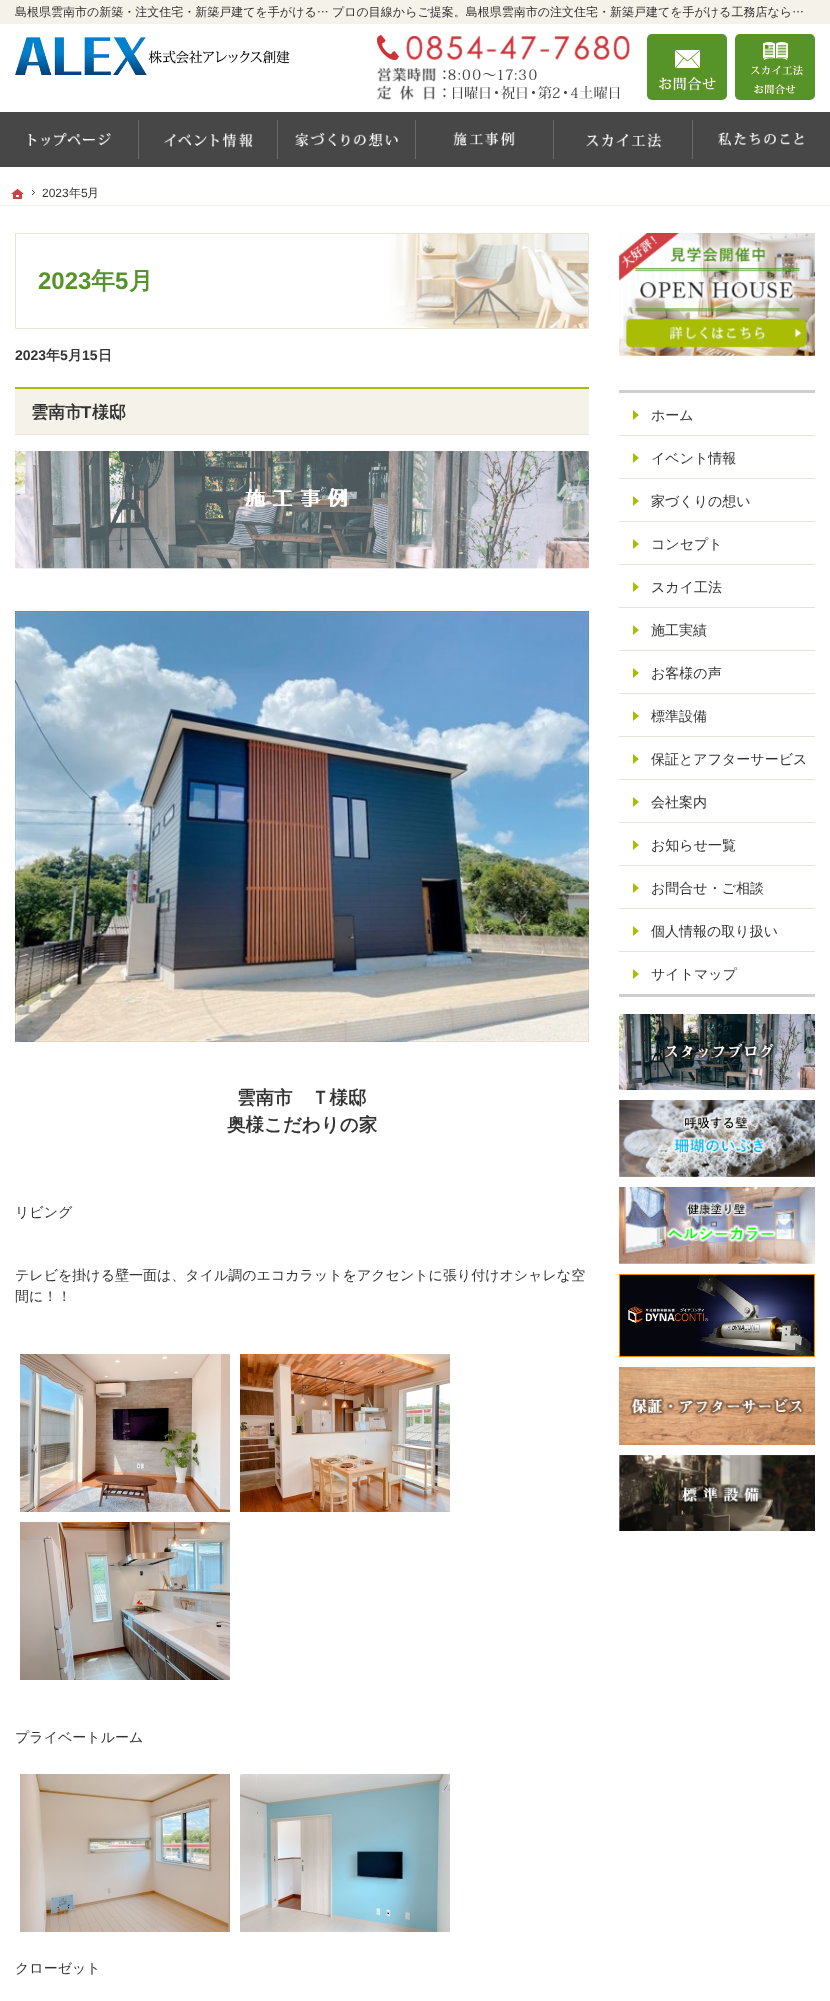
<svg xmlns="http://www.w3.org/2000/svg" width="830" height="2001">
<style>
.a{font:500 12px WenQuanYi Zen Hei;fill:#333}
.b{font:bold 24px Liberation Sans;fill:#569429}
.c{font:bold 24px WenQuanYi Zen Hei;fill:#569429}
.d{font:bold 14px Liberation Sans;fill:#333}
.e{font:bold 14px WenQuanYi Zen Hei;fill:#333}
.f{font:bold 17px WenQuanYi Zen Hei;fill:#333}
.g{font:bold 17px Liberation Sans;fill:#333}
.h{font:bold 18.5px WenQuanYi Zen Hei;fill:#333}
.i{font:500 14px WenQuanYi Zen Hei;fill:#333}
.j{font:12px Liberation Sans;fill:#333}
</style>
<rect width="100%" height="100%" fill="#fff"/>
<path fill="#f4f2e9" d="M0 0h830v24H0z"/>
<image href="1.png" x="15" y="37" width="275" height="38"/>
<image href="2.png" x="389" y="234" width="199" height="94"/>
<path fill="none" stroke="#e9e4cf" d="M15.5 233.5h573v95H15.5z"/>
<path fill="#f4f2e9" d="M15 389h574v45H15z"/>
<path fill="#a7bc0a" d="M15 387h574v2H15z"/>
<path fill="#e6e6e3" d="M15 434h574v1H15z"/>
<image href="3.png" x="15" y="451" width="574" height="118"/>
<image href="4.png" x="15" y="611" width="574" height="431"/>
<image href="5.png" x="20" y="1354" width="210" height="158"/>
<image href="6.png" x="240" y="1354" width="210" height="158"/>
<image href="7.png" x="20" y="1522" width="210" height="158"/>
<image href="8.png" x="20" y="1774" width="210" height="158"/>
<image href="9.png" x="240" y="1774" width="210" height="158"/>
<image href="10.png" x="619" y="233" width="196" height="123"/>
<path fill="#cfcfcf" d="M619 390h196v607H619z"/>
<path fill="#fff" d="M619 393h196v42H619z"/>
<image href="11.png" x="633" y="410" width="6" height="10"/>
<path fill="#e6e4d8" d="M619 435h196v1H619z"/>
<path fill="#fff" d="M619 436h196v42H619z"/>
<image href="11.png" x="633" y="453" width="6" height="10"/>
<path fill="#e6e4d8" d="M619 478h196v1H619z"/>
<path fill="#fff" d="M619 479h196v42H619z"/>
<image href="11.png" x="633" y="496" width="6" height="10"/>
<path fill="#e6e4d8" d="M619 521h196v1H619z"/>
<path fill="#fff" d="M619 522h196v42H619z"/>
<image href="11.png" x="633" y="539" width="6" height="10"/>
<path fill="#e6e4d8" d="M619 564h196v1H619z"/>
<path fill="#fff" d="M619 565h196v42H619z"/>
<image href="11.png" x="633" y="582" width="6" height="10"/>
<path fill="#e6e4d8" d="M619 607h196v1H619z"/>
<path fill="#fff" d="M619 608h196v42H619z"/>
<image href="11.png" x="633" y="625" width="6" height="10"/>
<path fill="#e6e4d8" d="M619 650h196v1H619z"/>
<path fill="#fff" d="M619 651h196v42H619z"/>
<image href="11.png" x="633" y="668" width="6" height="10"/>
<path fill="#e6e4d8" d="M619 693h196v1H619z"/>
<path fill="#fff" d="M619 694h196v42H619z"/>
<image href="11.png" x="633" y="711" width="6" height="10"/>
<path fill="#e6e4d8" d="M619 736h196v1H619z"/>
<path fill="#fff" d="M619 737h196v42H619z"/>
<image href="11.png" x="633" y="754" width="6" height="10"/>
<path fill="#e6e4d8" d="M619 779h196v1H619z"/>
<path fill="#fff" d="M619 780h196v42H619z"/>
<image href="11.png" x="633" y="797" width="6" height="10"/>
<path fill="#e6e4d8" d="M619 822h196v1H619z"/>
<path fill="#fff" d="M619 823h196v42H619z"/>
<image href="11.png" x="633" y="840" width="6" height="10"/>
<path fill="#e6e4d8" d="M619 865h196v1H619z"/>
<path fill="#fff" d="M619 866h196v42H619z"/>
<image href="11.png" x="633" y="883" width="6" height="10"/>
<path fill="#e6e4d8" d="M619 908h196v1H619z"/>
<path fill="#fff" d="M619 909h196v42H619z"/>
<image href="11.png" x="633" y="926" width="6" height="10"/>
<path fill="#e6e4d8" d="M619 951h196v1H619z"/>
<path fill="#fff" d="M619 952h196v42H619z"/>
<image href="11.png" x="633" y="969" width="6" height="10"/>
<image href="12.png" x="619" y="1014" width="196" height="76"/>
<image href="13.png" x="619" y="1100" width="196" height="77"/>
<image href="14.png" x="619" y="1187" width="196" height="77"/>
<image href="15.png" x="619" y="1274" width="196" height="83"/>
<image href="16.png" x="619" y="1367" width="196" height="78"/>
<image href="17.png" x="619" y="1455" width="196" height="76"/>
<image href="18.png" x="377" y="35" width="253" height="65"/>
<rect fill="#569429" x="647" y="34" width="80" height="66" rx="5"/>
<image href="19.png" x="658" y="48" width="59" height="44"/>
<rect fill="#569429" x="735" y="34" width="80" height="66" rx="5"/>
<image href="20.png" x="750" y="40" width="54" height="55"/>
<path fill="#474747" d="M0 112h830v55H0z"/>
<image href="21.png" x="28" y="133" width="83" height="13"/>
<image href="22.png" x="164" y="133" width="89" height="15"/>
<path fill="#6c6b6a" d="M138 120h1v39H138z"/>
<image href="23.png" x="295" y="133" width="103" height="14"/>
<path fill="#6c6b6a" d="M277 120h1v39H277z"/>
<image href="24.png" x="453" y="132" width="62" height="14"/>
<path fill="#6c6b6a" d="M415 120h1v39H415z"/>
<image href="25.png" x="586" y="133" width="76" height="15"/>
<path fill="#6c6b6a" d="M553 120h1v39H553z"/>
<image href="26.png" x="718" y="132" width="87" height="14"/>
<path fill="#6c6b6a" d="M692 120h1v39H692z"/>
<path fill="#f4f2e9" d="M0 205h830v1H0z"/>
<image href="27.png" x="11" y="189" width="13" height="10"/>
<image href="28.png" x="32" y="190" width="3" height="5"/>
<text class="a" x="15" y="16">島根県雲南市の新築・注文住宅・新築戸建てを手がける…</text>
<text class="a" x="332" y="16">プロの目線からご提案。島根県雲南市の注文住宅・新築戸建てを手がける工務店なら…</text>
<text class="b" x="38" y="289">2023</text>
<text class="c" x="91" y="289">年</text>
<text class="b" x="115" y="289">5</text>
<text class="c" x="129" y="289">月</text>
<text class="d" x="15" y="360">2023</text>
<text class="e" x="46" y="360">年</text>
<text class="d" x="60" y="360">5</text>
<text class="e" x="68" y="360">月</text>
<text class="d" x="82" y="360">15</text>
<text class="e" x="98" y="360">日</text>
<text class="f" x="31" y="418">雲南市</text>
<text class="g" x="81" y="418">T</text>
<text class="f" x="92" y="418">様邸</text>
<text class="h" x="237" y="1104">雲南市　Ｔ様邸</text>
<text class="h" x="227" y="1131">奥様こだわりの家</text>
<text class="i" x="15" y="1217">リビング</text>
<text class="i" x="15" y="1280">テレビを掛ける壁一面は、タイル調のエコカラットをアクセントに張り付けオシャレな空</text>
<text class="i" x="15" y="1301">間に！！</text>
<text class="i" x="15" y="1742">プライベートルーム</text>
<text class="i" x="15" y="1973">クローゼット</text>
<text class="i" x="651" y="420">ホーム</text>
<text class="i" x="651" y="463">イベント情報</text>
<text class="i" x="651" y="506">家づくりの想い</text>
<text class="i" x="651" y="549">コンセプト</text>
<text class="i" x="651" y="592">スカイ工法</text>
<text class="i" x="651" y="635">施工実績</text>
<text class="i" x="651" y="678">お客様の声</text>
<text class="i" x="651" y="721">標準設備</text>
<text class="i" x="651" y="764">保証とアフターサービス</text>
<text class="i" x="651" y="807">会社案内</text>
<text class="i" x="651" y="850">お知らせ一覧</text>
<text class="i" x="651" y="893">お問合せ・ご相談</text>
<text class="i" x="651" y="936">個人情報の取り扱い</text>
<text class="i" x="651" y="979">サイトマップ</text>
<text class="j" x="42" y="197">2023</text>
<text class="a" x="69" y="197">年</text>
<text class="j" x="81" y="197">5</text>
<text class="a" x="87" y="197">月</text>
</svg>
